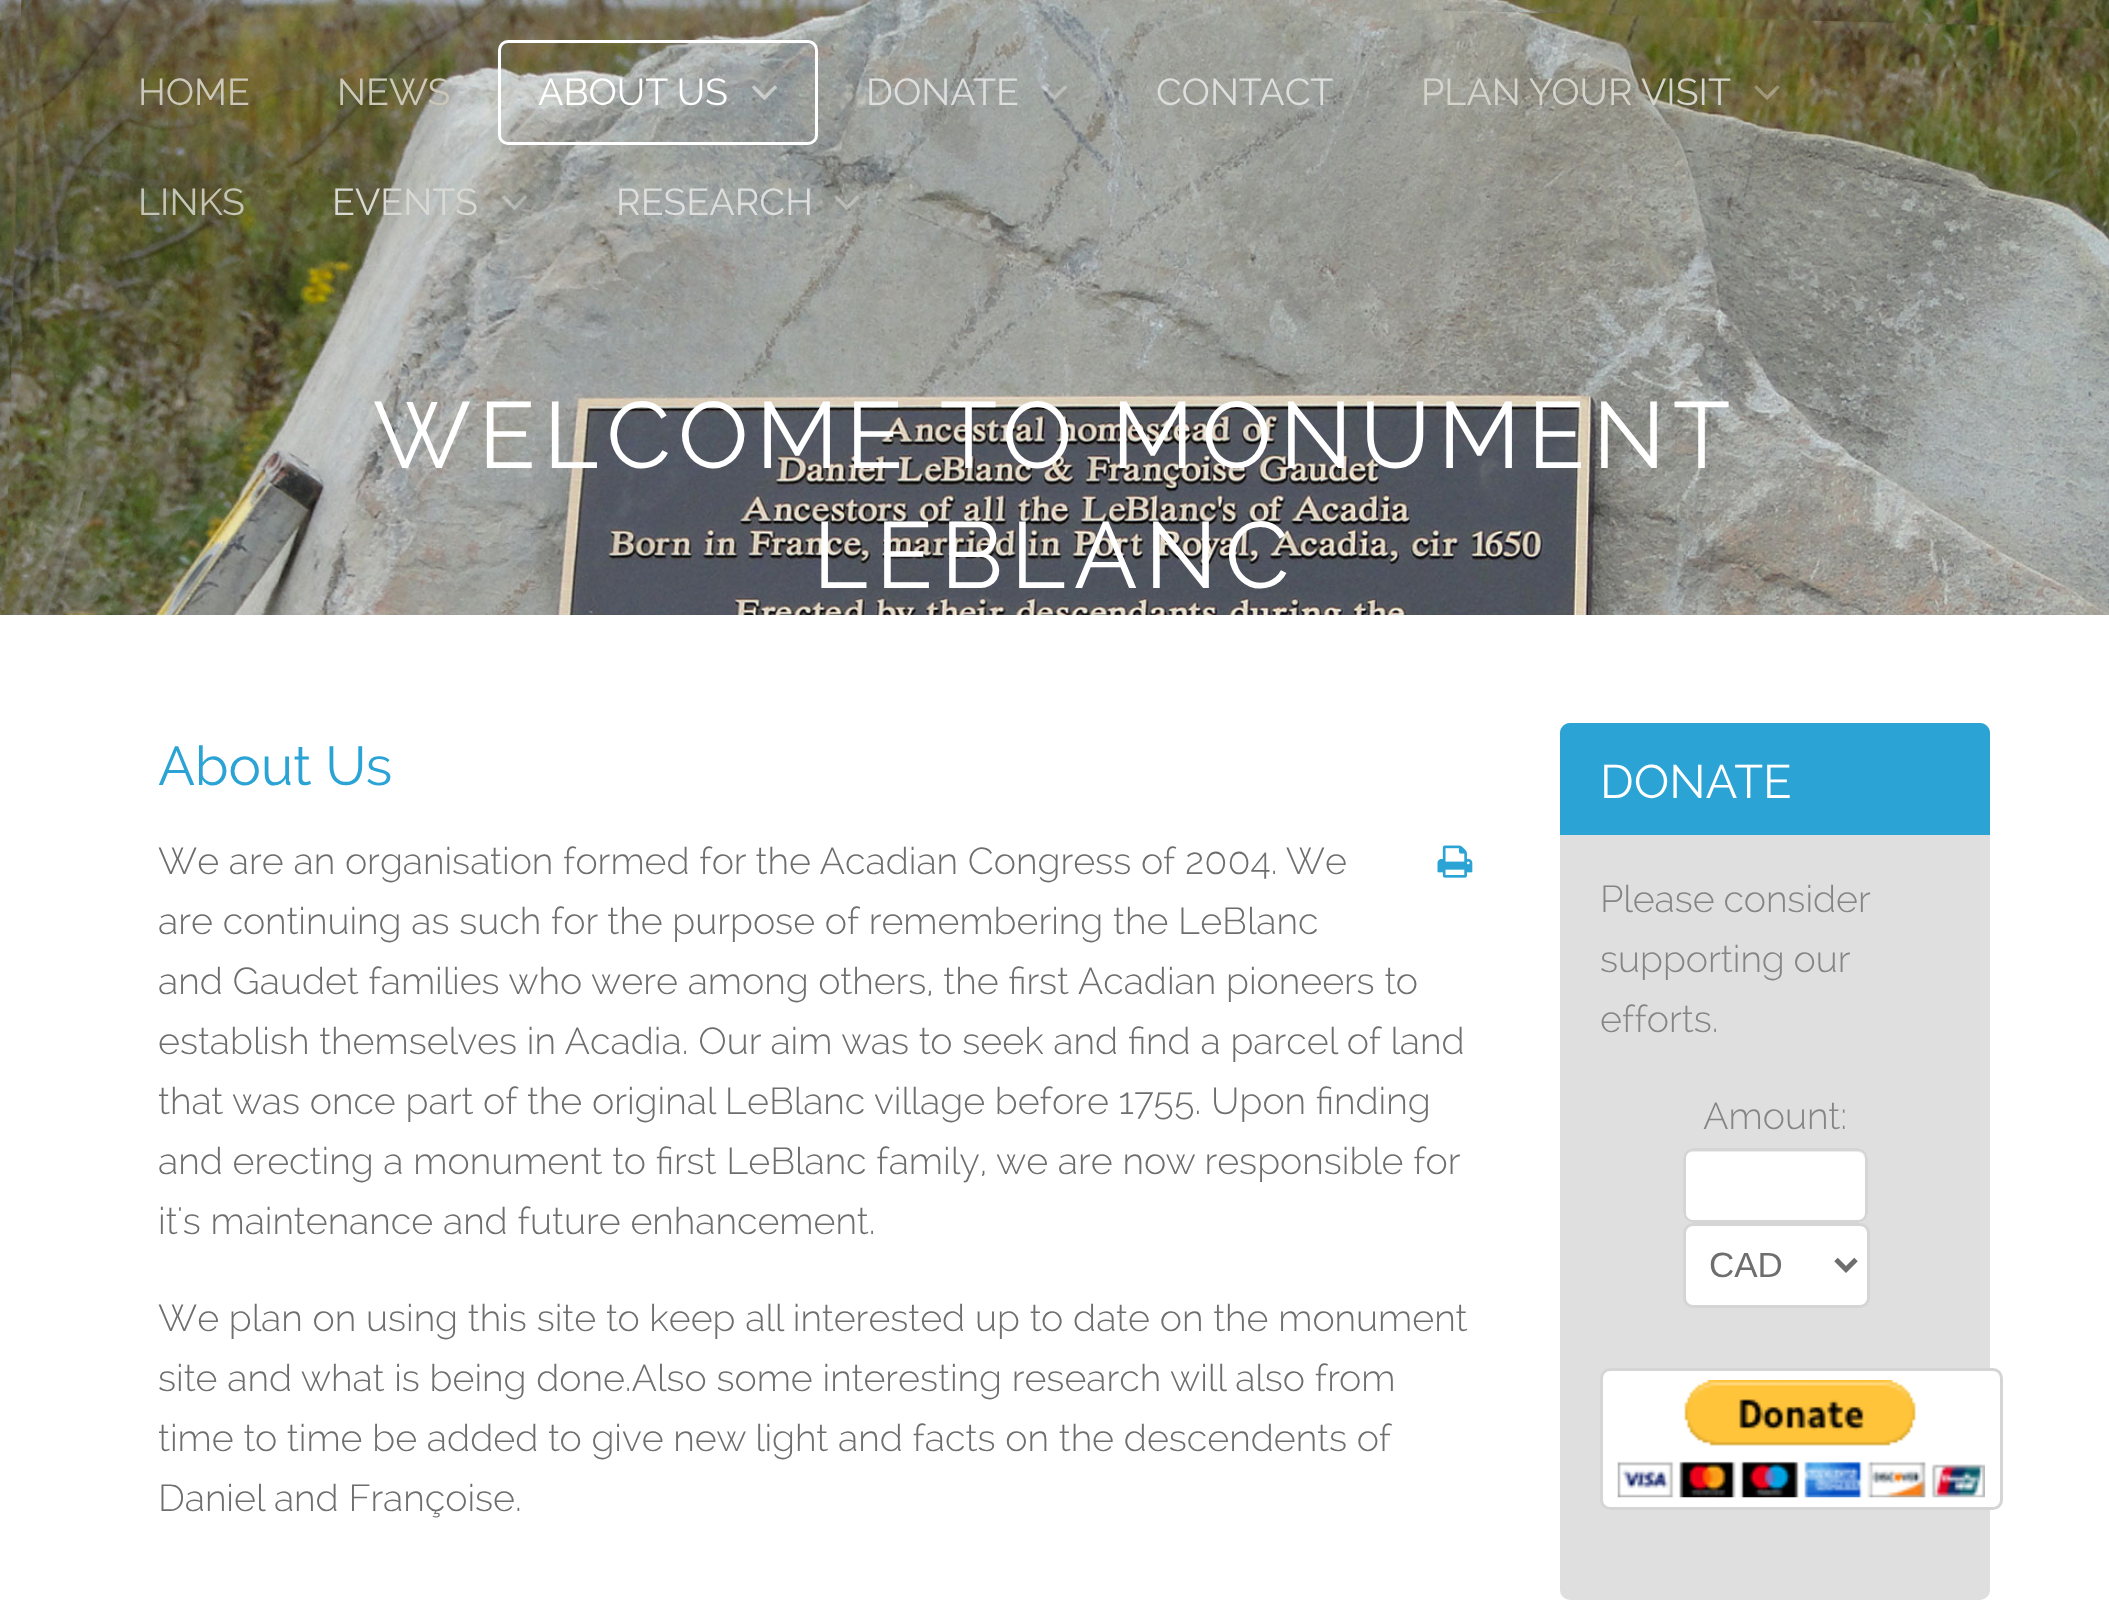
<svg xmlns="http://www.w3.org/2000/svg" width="2109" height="1615">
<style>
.a{font:37.5px Raleway;fill:#ccc8ba}
.b{font:37.5px Raleway;fill:#fff}
.c{font:37.5px Raleway;fill:#dddedd}
.d{font:37.5px Raleway;fill:#d5d5ce}
.e{font:37.5px Raleway;fill:#c5c5b7}
.f{font:37.5px Raleway;fill:#dadad5}
.g{font:93.75px Raleway;letter-spacing:7.5px;fill:#fff}
.h{font:54.5px Raleway;fill:#2ba3d4}
.i{font:300 37.5px Raleway;fill:#6e6e6e}
.j{font:47px Raleway;fill:#fff}
.k{font:300 37.5px Raleway;fill:#858585}
.l{font:35px Liberation Sans;fill:#6e6e6e}
</style>
<rect width="100%" height="100%" fill="#fff"/>
<image href="1.png" x="0" y="0" width="2109" height="615"/>
<rect fill="none" stroke="#fff" stroke-width="3" x="499.5" y="41.5" width="317" height="102" rx="8.5"/>
<image href="2.png" x="752" y="85" width="25" height="15"/>
<image href="3.png" x="1042" y="85" width="25" height="15"/>
<image href="4.png" x="1754" y="85" width="26" height="15"/>
<image href="5.png" x="502" y="195" width="25" height="15"/>
<image href="6.png" x="834" y="195" width="26" height="15"/>
<image href="7.png" x="1437" y="845" width="36" height="33"/>
<rect fill="#dfdfdf" x="1560" y="723" width="430" height="877" rx="10"/>
<path fill="#2ba3d4" d="M1570 723h410c5.5 0 10 4.5 10 10v102h-430v-102c0-5.5 4.5-10 10-10z"/>
<rect fill="#fff" x="1683" y="1148" width="185" height="75" rx="10"/>
<path fill="#ececec" d="M1692 1152h166c4 0 7 4 7 8v-2c0-4-4-8-8-8h-164c-4 0-8 4-8 8v2c0-4 3-8 7-8z"/>
<rect fill="none" stroke="#d5d5d5" stroke-width="3" x="1684.5" y="1149.5" width="182" height="72" rx="8.5"/>
<rect fill="#fff" stroke="#d5d5d5" stroke-width="3" x="1684.5" y="1224.5" width="184" height="82" rx="8.5"/>
<path fill="none" stroke="#6e6e6e" stroke-width="5" d="M1836 1259.5l10 10l10-10"/>
<rect fill="#fff" stroke="#d5d5d5" stroke-width="3" x="1601.5" y="1369.5" width="400" height="139" rx="8.5"/>
<image href="8.png" x="1617" y="1380" width="368" height="118"/>
<text class="a" x="138" y="105">HOME</text>
<text class="a" x="337" y="105">NEWS</text>
<text class="b" x="538" y="105">ABOUT US</text>
<text class="c" x="866" y="105">DONATE</text>
<text class="c" x="1156" y="105">CONTACT</text>
<text class="d" x="1421" y="105">PLAN YOUR VISIT</text>
<text class="e" x="138" y="215">LINKS</text>
<text class="f" x="332" y="215">EVENTS</text>
<text class="c" x="616" y="215">RESEARCH</text>
<text class="g" x="373" y="468">WELCOME TO MONUMENT</text>
<text class="g" x="813" y="588">LEBLANC</text>
<text class="h" x="158" y="785">About Us</text>
<text class="i" x="158" y="874">We are an organisation formed for the Acadian Congress of 2004. We</text>
<text class="i" x="158" y="934">are continuing as such for the purpose of remembering the LeBlanc</text>
<text class="i" x="158" y="994">and Gaudet families who were among others, the first Acadian pioneers to</text>
<text class="i" x="158" y="1054">establish themselves in Acadia. Our aim was to seek and find a parcel of land</text>
<text class="i" x="158" y="1114">that was once part of the original LeBlanc village before 1755. Upon finding</text>
<text class="i" x="158" y="1174">and erecting a monument to first LeBlanc family, we are now responsible for</text>
<text class="i" x="158" y="1234">it's maintenance and future enhancement.</text>
<text class="i" x="158" y="1331">We plan on using this site to keep all interested up to date on the monument</text>
<text class="i" x="158" y="1391">site and what is being done.Also some interesting research will also from</text>
<text class="i" x="158" y="1451">time to time be added to give new light and facts on the descendents of</text>
<text class="i" x="158" y="1511">Daniel and Françoise.</text>
<text class="j" x="1600" y="798">DONATE</text>
<text class="k" x="1600" y="912" word-spacing="-1">Please consider</text>
<text class="k" x="1600" y="972" word-spacing="-1">supporting our</text>
<text class="k" x="1600" y="1032">efforts.</text>
<text class="k" x="1703" y="1129">Amount:</text>
<text class="l" x="1709" y="1277">CAD</text>
</svg>
